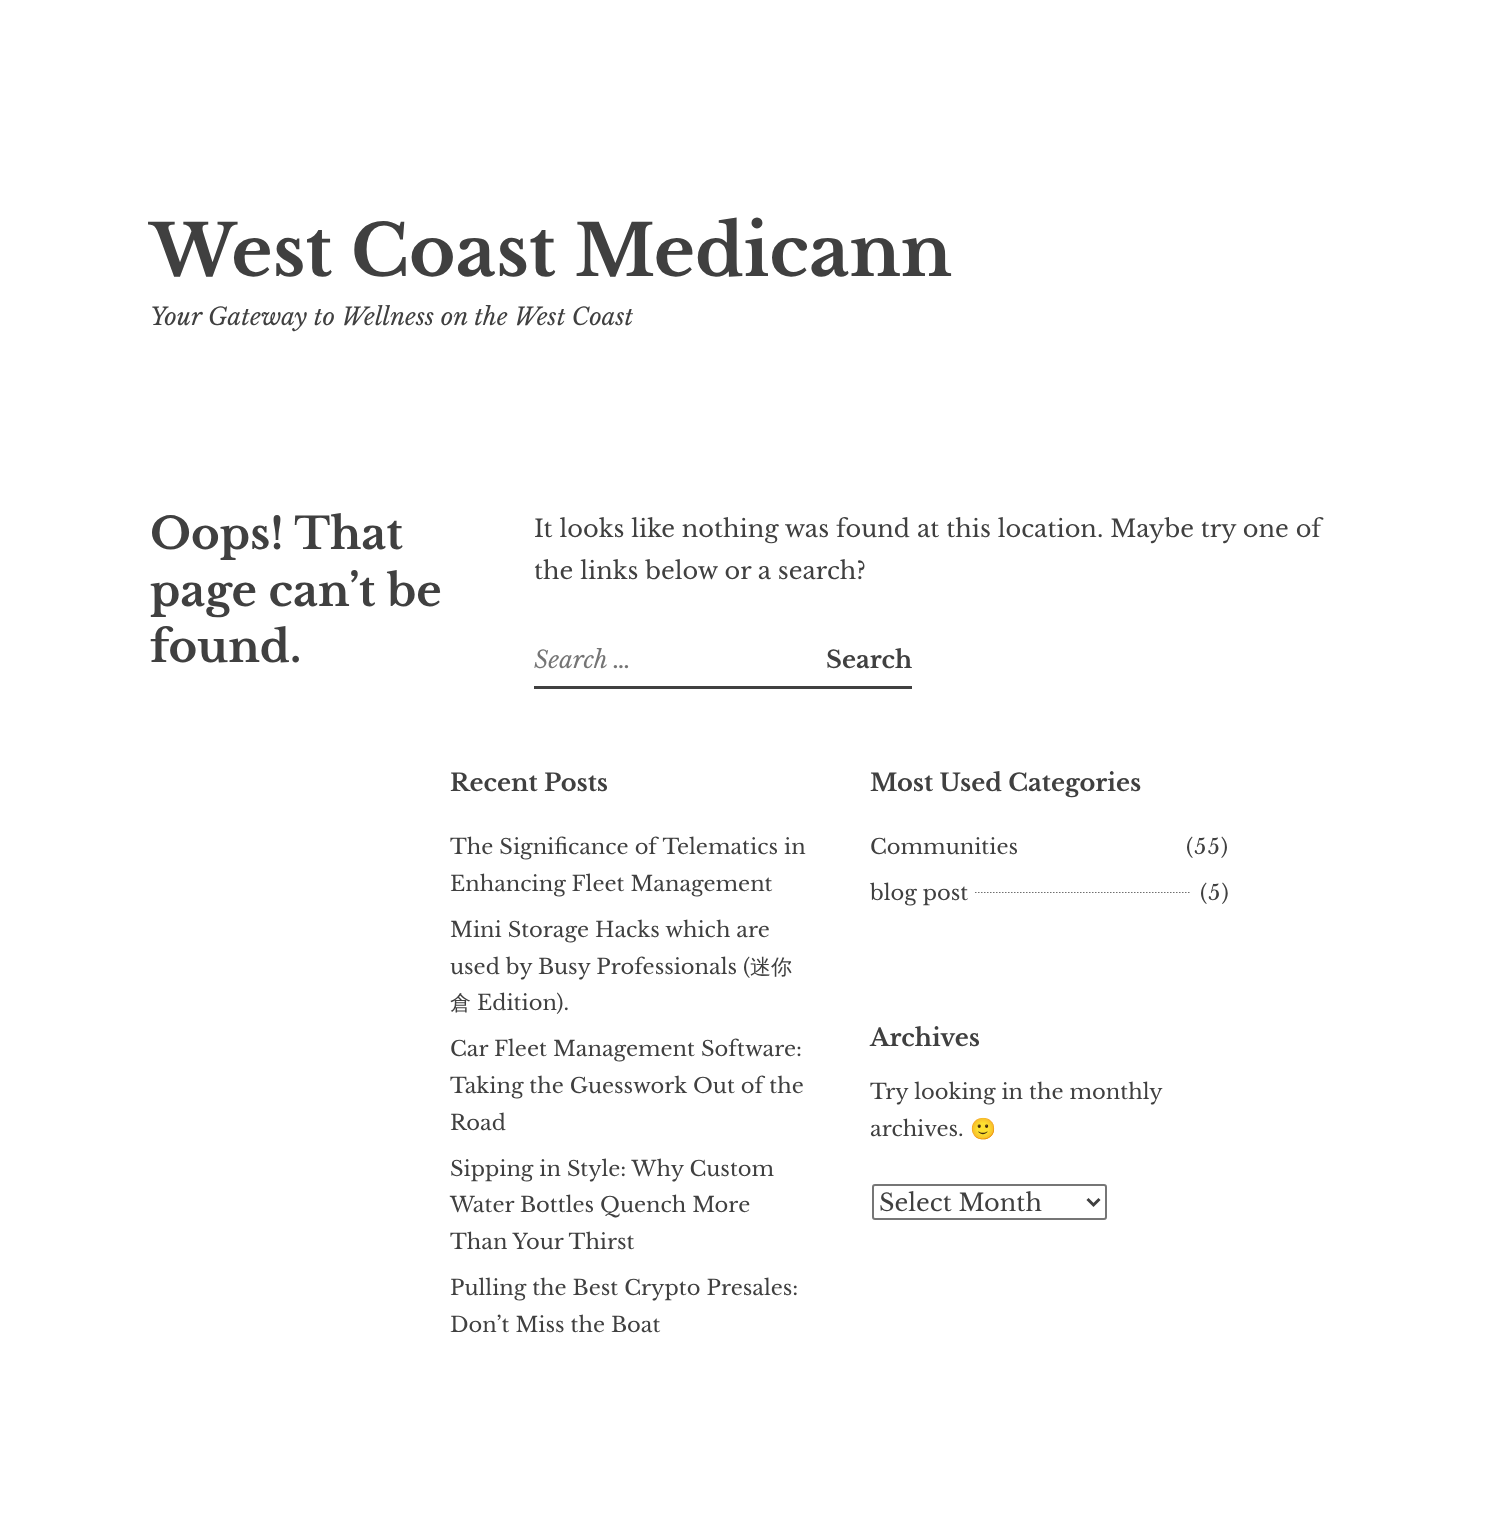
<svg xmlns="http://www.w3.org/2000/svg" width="1500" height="1534">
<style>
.a{font:bold 70.5px Libre Baskerville;fill:#404040}
.b{font:italic 24px Libre Baskerville;fill:#404040}
.c{font:bold 43.5px Libre Baskerville;fill:#404040}
.d{font:24px Libre Baskerville;fill:#404040}
.e{font:italic 24px Libre Baskerville;fill:#757575}
.f{font:bold 24px Libre Baskerville;fill:#404040}
.g{font:21px Libre Baskerville;fill:#404040}
.h{font:500 21px WenQuanYi Zen Hei;fill:#404040}
.i{font:21px Libre Baskerville;letter-spacing:1.5px;fill:#404040}
.j{font:21px Noto Color Emoji;fill:#404040}
</style>
<rect width="100%" height="100%" fill="#fff"/>
<path fill="#404040" d="M534 686h378v3H534z"/>
<path fill="none" stroke="#404040" stroke-width="1.5" stroke-dasharray="1.5 1.5" d="M870 893h360"/>
<path fill="#fff" d="M870 892h104v2H870z"/>
<path fill="#fff" d="M975 893h216v1H975z"/>
<path fill="#fff" d="M1191 892h38v2H1191z"/>
<rect fill="none" stroke="#767676" stroke-width="2" x="873" y="1185" width="233" height="34" rx="2"/>
<path fill="none" stroke="#404040" stroke-width="3" d="M1087.5 1199l6 6l6-6"/>
<text class="a" x="150" y="276">West Coast Medicann</text>
<text class="b" x="150" y="325">Your Gateway to Wellness on the West Coast</text>
<text class="c" x="150" y="549">Oops! That</text>
<text class="c" x="150" y="606">page can’t be</text>
<text class="c" x="150" y="662">found.</text>
<text class="d" x="534" y="537">It looks like nothing was found at this location. Maybe try one of</text>
<text class="d" x="534" y="579">the links below or a search?</text>
<text class="e" x="534" y="668">Search …</text>
<text class="f" x="826" y="668">Search</text>
<text class="f" x="450" y="791">Recent Posts</text>
<text class="g" x="450" y="854">The Significance of Telematics in</text>
<text class="g" x="450" y="891">Enhancing Fleet Management</text>
<text class="g" x="450" y="937">Mini Storage Hacks which are</text>
<text class="g" x="450" y="974">used by Busy Professionals (</text>
<text class="h" x="750" y="974">迷你</text>
<text class="h" x="450" y="1010">倉</text>
<text class="g" x="477" y="1010">Edition).</text>
<text class="g" x="450" y="1056">Car Fleet Management Software:</text>
<text class="g" x="450" y="1093">Taking the Guesswork Out of the</text>
<text class="g" x="450" y="1130">Road</text>
<text class="g" x="450" y="1176">Sipping in Style: Why Custom</text>
<text class="g" x="450" y="1212">Water Bottles Quench More</text>
<text class="g" x="450" y="1249">Than Your Thirst</text>
<text class="g" x="450" y="1295">Pulling the Best Crypto Presales:</text>
<text class="g" x="450" y="1332">Don’t Miss the Boat</text>
<text class="f" x="870" y="791">Most Used Categories</text>
<text class="g" x="870" y="854">Communities</text>
<text class="i" x="1186" y="854">(55)</text>
<text class="g" x="870" y="900">blog post</text>
<text class="i" x="1200" y="900">(5)</text>
<text class="f" x="870" y="1046">Archives</text>
<text class="g" x="870" y="1099">Try looking in the monthly</text>
<text class="g" x="870" y="1136">archives.</text>
<text class="j" x="970" y="1136">🙂</text>
<text class="d" x="879" y="1211">Select Month</text>
</svg>
